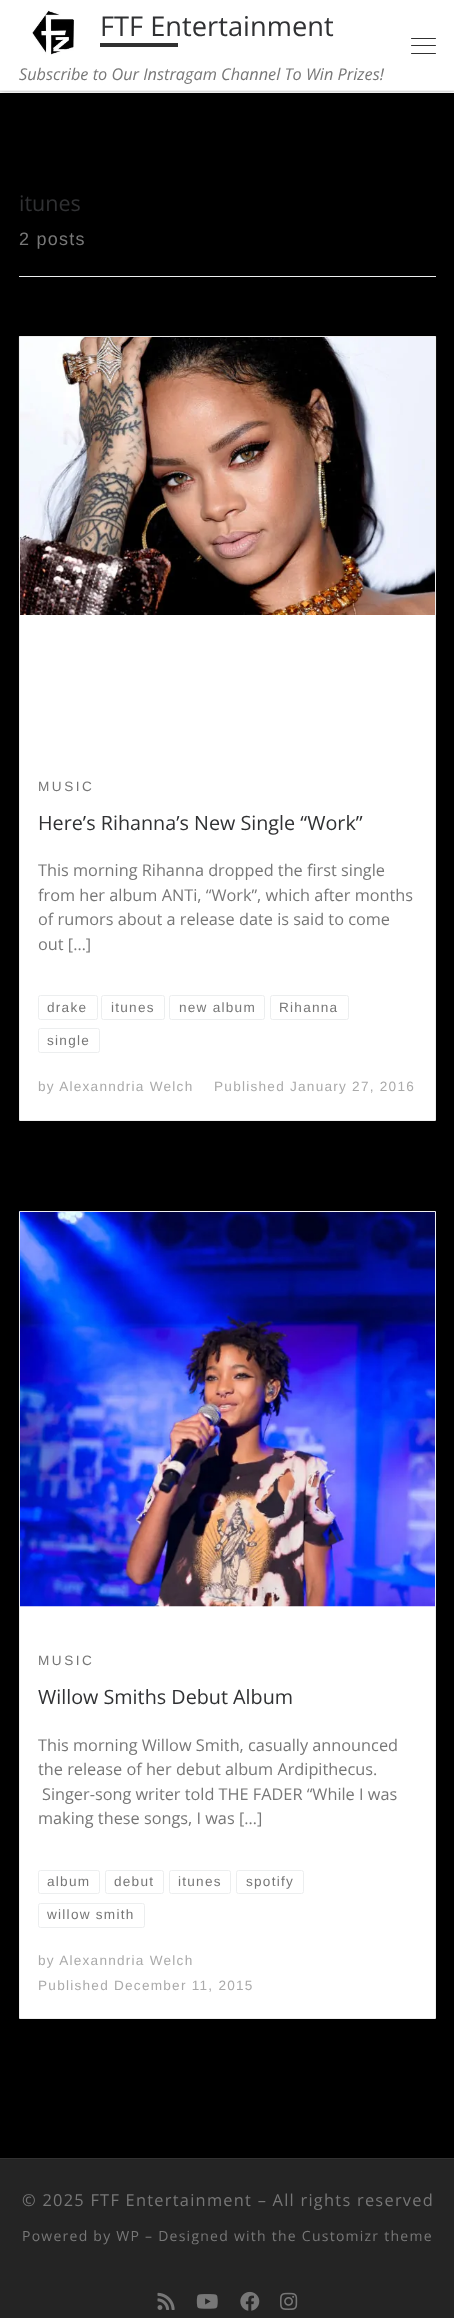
<svg xmlns="http://www.w3.org/2000/svg" width="454" height="2318">
<style>
.a{font:27.25px Open Sans;fill:#303133}
.b{font:italic 16.3px Open Sans;fill:#777}
.c{font:21.5px Open Sans;fill:#303133}
.d{font:18px Liberation Sans;letter-spacing:1.25px;fill:#777}
.e{font:13.6px Liberation Sans;letter-spacing:2.5px;fill:#777}
.f{font:19.75px Open Sans;fill:#303133}
.g{font:16.3px Open Sans;fill:#777}
.h{font:13.6px Liberation Sans;letter-spacing:1.25px;fill:#777}
.i{font:13.6px Liberation Sans;letter-spacing:1.25px;fill:#aaa}
.j{font:16.4px Open Sans;letter-spacing:1.25px;fill:#777}
.k{font:14px Open Sans;letter-spacing:1.25px;fill:#777}
</style>
<defs>
<clipPath id="clip1"><path d="M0 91h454v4H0z"/></clipPath>
</defs>
<rect width="100%" height="100%" fill="#000"/>
<path fill="#fff" d="M0 0h454v93H0z"/>
<path fill="#ececec" d="M0 91h454v1H0z"/>
<path fill="#ffffff26" d="M0 91h454v1H0z"/>
<g clip-path="url(#clip1)">
<path fill="#00000033" filter="blur(3px)" d="M0 0h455v91H0z"/>
</g>
<image href="1.png" x="32" y="10" width="42" height="45"/>
<path fill="#313131" d="M100 43h78v4H100z"/>
<rect fill="#313131" x="411" y="38" width="25" height="1" rx="0.5"/>
<rect fill="#313131" x="411" y="45" width="25" height="1" rx="0.5"/>
<rect fill="#313131" x="411" y="53" width="25" height="1" rx="0.5"/>
<path fill="#f0f0f0" d="M0 90h454v1H0z"/>
<path fill="#eceeef" d="M19 276h417v1H19z"/>
<path fill="#fff" d="M20 615h415v505H20z"/>
<image href="2.png" x="18" y="336" width="419" height="279"/>
<rect fill="none" stroke="#eceeef" x="38.5" y="995.5" width="59" height="24" rx="2"/>
<rect fill="none" stroke="#eceeef" x="101.5" y="995.5" width="63" height="24" rx="2"/>
<rect fill="none" stroke="#eceeef" x="169.5" y="995.5" width="95" height="24" rx="2"/>
<rect fill="none" stroke="#eceeef" x="270.5" y="995.5" width="78" height="24" rx="2"/>
<rect fill="none" stroke="#eceeef" x="38.5" y="1028.5" width="61" height="24" rx="2"/>
<path fill="none" stroke="#efefef" d="M19.5 336.5h416v784H19.5z"/>
<path fill="#fff" d="M20 1606h415v412H20z"/>
<image href="3.png" x="18" y="1211" width="419" height="396"/>
<rect fill="none" stroke="#eceeef" x="38.5" y="1870.5" width="61" height="23" rx="2"/>
<rect fill="none" stroke="#eceeef" x="105.5" y="1870.5" width="58" height="23" rx="2"/>
<rect fill="none" stroke="#eceeef" x="169.5" y="1870.5" width="61" height="23" rx="2"/>
<rect fill="none" stroke="#eceeef" x="236.5" y="1870.5" width="67" height="23" rx="2"/>
<rect fill="none" stroke="#eceeef" x="38.5" y="1903.5" width="106" height="24" rx="2"/>
<path fill="none" stroke="#efefef" d="M19.5 1211.5h416v807H19.5z"/>
<path fill="#313131" d="M0 2158h454v1H0z"/>
<path fill="#242424" d="M0 2159h454v159H0z"/>
<image href="4.png" x="157" y="2292" width="18" height="18"/>
<image href="5.png" x="196" y="2294" width="22" height="15"/>
<image href="6.png" x="240" y="2291" width="20" height="20"/>
<image href="7.png" x="280" y="2292" width="18" height="18"/>
<text class="a" x="100" y="36">FTF Entertainment</text>
<text class="b" x="19" y="80">Subscribe to Our Instragam Channel To Win Prizes!</text>
<text class="c" x="19" y="211">itunes</text>
<text class="d" x="19" y="245">2 posts</text>
<text class="e" x="38" y="791">MUSIC</text>
<text class="f" x="38" y="830">Here’s Rihanna’s New Single “Work”</text>
<text class="g" x="38" y="876">This morning Rihanna dropped the first single</text>
<text class="g" x="38" y="901">from her album ANTi, “Work”, which after months</text>
<text class="g" x="38" y="925">of rumors about a release date is said to come</text>
<text class="g" x="38" y="950">out […]</text>
<text class="h" x="47" y="1012">drake</text>
<text class="h" x="111" y="1012">itunes</text>
<text class="h" x="179" y="1012">new album</text>
<text class="h" x="279" y="1012">Rihanna</text>
<text class="h" x="47" y="1045">single</text>
<text class="i" x="38" y="1091">by Alexanndria Welch</text>
<text class="i" x="214" y="1091">Published January 27, 2016</text>
<text class="e" x="38" y="1665">MUSIC</text>
<text class="f" x="38" y="1704">Willow Smiths Debut Album</text>
<text class="g" x="38" y="1751">This morning Willow Smith, casually announced</text>
<text class="g" x="38" y="1775">the release of her debut album Ardipithecus.</text>
<text class="g" x="42" y="1800">Singer-song writer told THE FADER “While I was</text>
<text class="g" x="38" y="1824">making these songs, I was […]</text>
<text class="h" x="47" y="1886">album</text>
<text class="h" x="114" y="1886">debut</text>
<text class="h" x="178" y="1886">itunes</text>
<text class="h" x="246" y="1886">spotify</text>
<text class="h" x="47" y="1919">willow smith</text>
<text class="i" x="38" y="1965">by Alexanndria Welch</text>
<text class="i" x="38" y="1990">Published December 11, 2015</text>
<text class="j" x="22" y="2206">© 2025 FTF Entertainment – All rights reserved</text>
<text class="k" x="22" y="2241">Powered by WP – Designed with the Customizr theme</text>
</svg>
